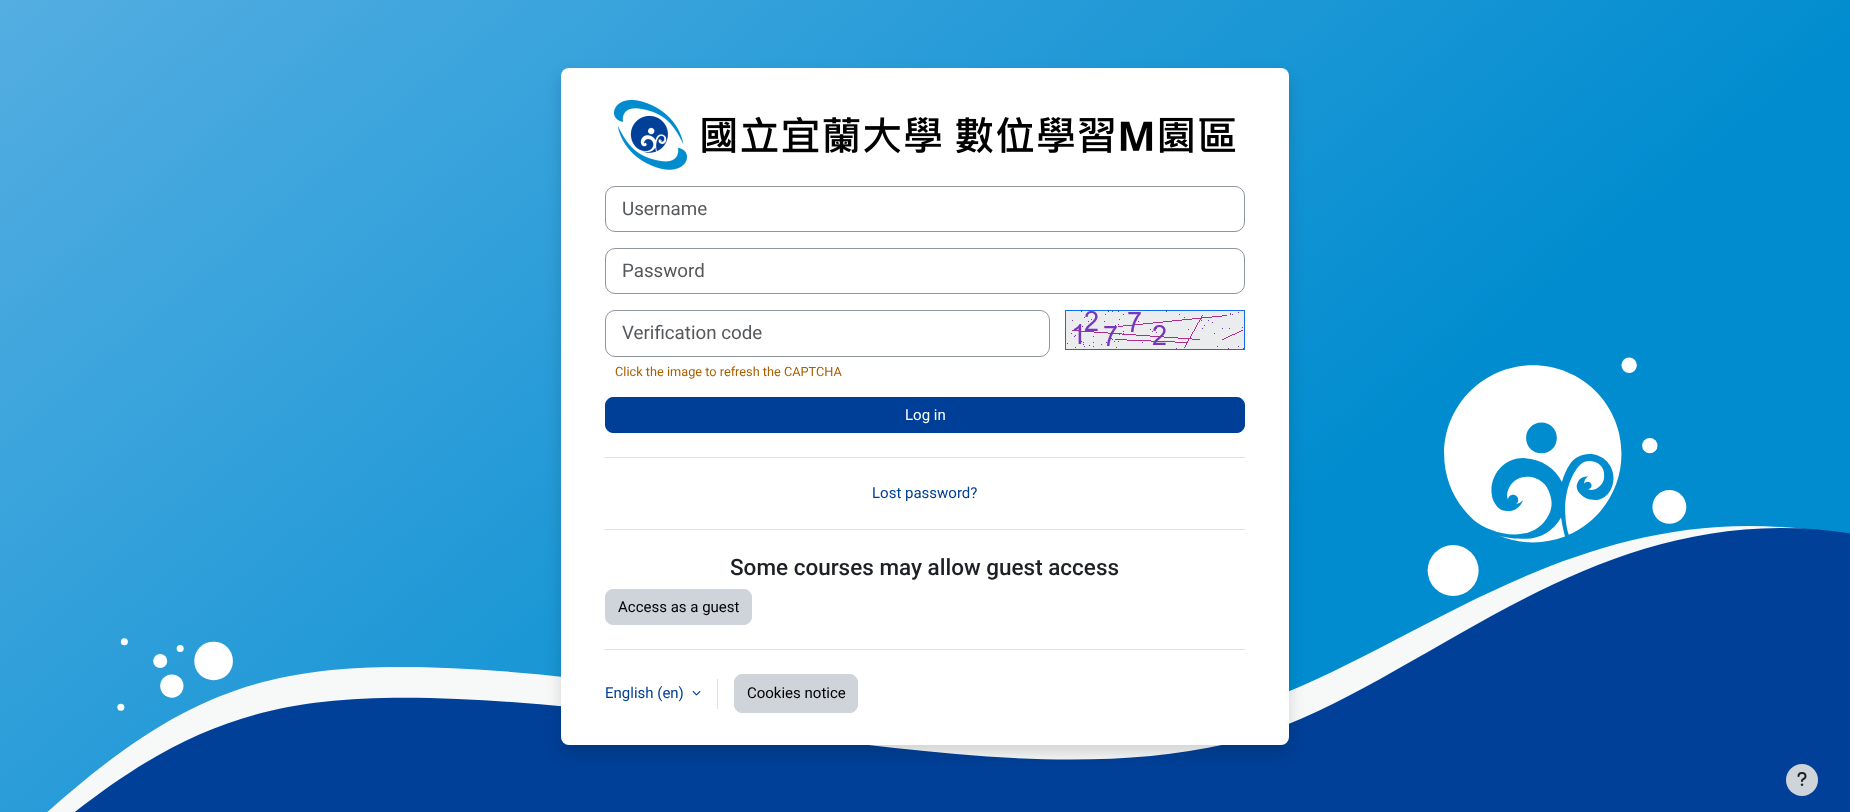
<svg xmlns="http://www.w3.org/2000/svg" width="1850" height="812">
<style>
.a{font:18.75px Roboto;fill:#56595c}
.b{font:12.75px Roboto;fill:#a95f00}
.c{font:15px Roboto;fill:#fff}
.d{font:15px Roboto;fill:#003f98}
.e{font:500 22.5px Roboto;fill:#1d2125}
.f{font:15px Roboto;fill:#000}
</style>
<rect width="100%" height="100%" fill="#fff"/>
<image href="1.png" x="0" y="0" width="1850" height="812"/>
<rect fill="#00000026" filter="blur(8px)" x="561" y="76" width="728" height="677" rx="8"/>
<rect fill="#fff" x="561" y="68" width="728" height="677" rx="8"/>
<image href="2.png" x="614" y="100" width="622" height="70"/>
<rect fill="none" stroke="#8f959e" x="605.5" y="186.5" width="639" height="45" rx="9.5"/>
<rect fill="none" stroke="#8f959e" x="605.5" y="248.5" width="639" height="45" rx="9.5"/>
<rect fill="none" stroke="#8f959e" x="605.5" y="310.5" width="444" height="46" rx="9.5"/>
<image href="3.png" x="1065" y="310" width="180" height="40"/>
<rect fill="#003f98" stroke="#003f98" x="605.5" y="397.5" width="639" height="35" rx="7.5"/>
<path fill="#dee2e6" d="M605 457h640v1H605z"/>
<path fill="#dee2e6" d="M605 529h640v1H605z"/>
<rect fill="#ced4da" stroke="#ced4da" x="605.5" y="589.5" width="146" height="35" rx="7.5"/>
<path fill="#dee2e6" d="M605 649h640v1H605z"/>
<image href="4.png" x="692" y="691" width="9" height="5"/>
<path fill="#dee2e6" d="M717 679h1v30H717z"/>
<rect fill="#ced4da" stroke="#ced4da" x="734.5" y="674.5" width="123" height="38" rx="7.5"/>
<circle fill="#ced4da" cx="1802" cy="780" r="16"/>
<image href="5.png" x="1797" y="772" width="10" height="14"/>
<text class="a" x="622" y="215">Username</text>
<text class="a" x="622" y="277">Password</text>
<text class="a" x="622" y="339">Verification code</text>
<text class="b" x="615" y="376">Click the image to refresh the CAPTCHA</text>
<text class="c" x="905" y="420">Log in</text>
<text class="d" x="872" y="498">Lost password?</text>
<text class="e" x="730" y="575">Some courses may allow guest access</text>
<text class="f" x="618" y="612">Access as a guest</text>
<text class="d" x="605" y="698">English (en)</text>
<text class="f" x="747" y="698">Cookies notice</text>
</svg>
